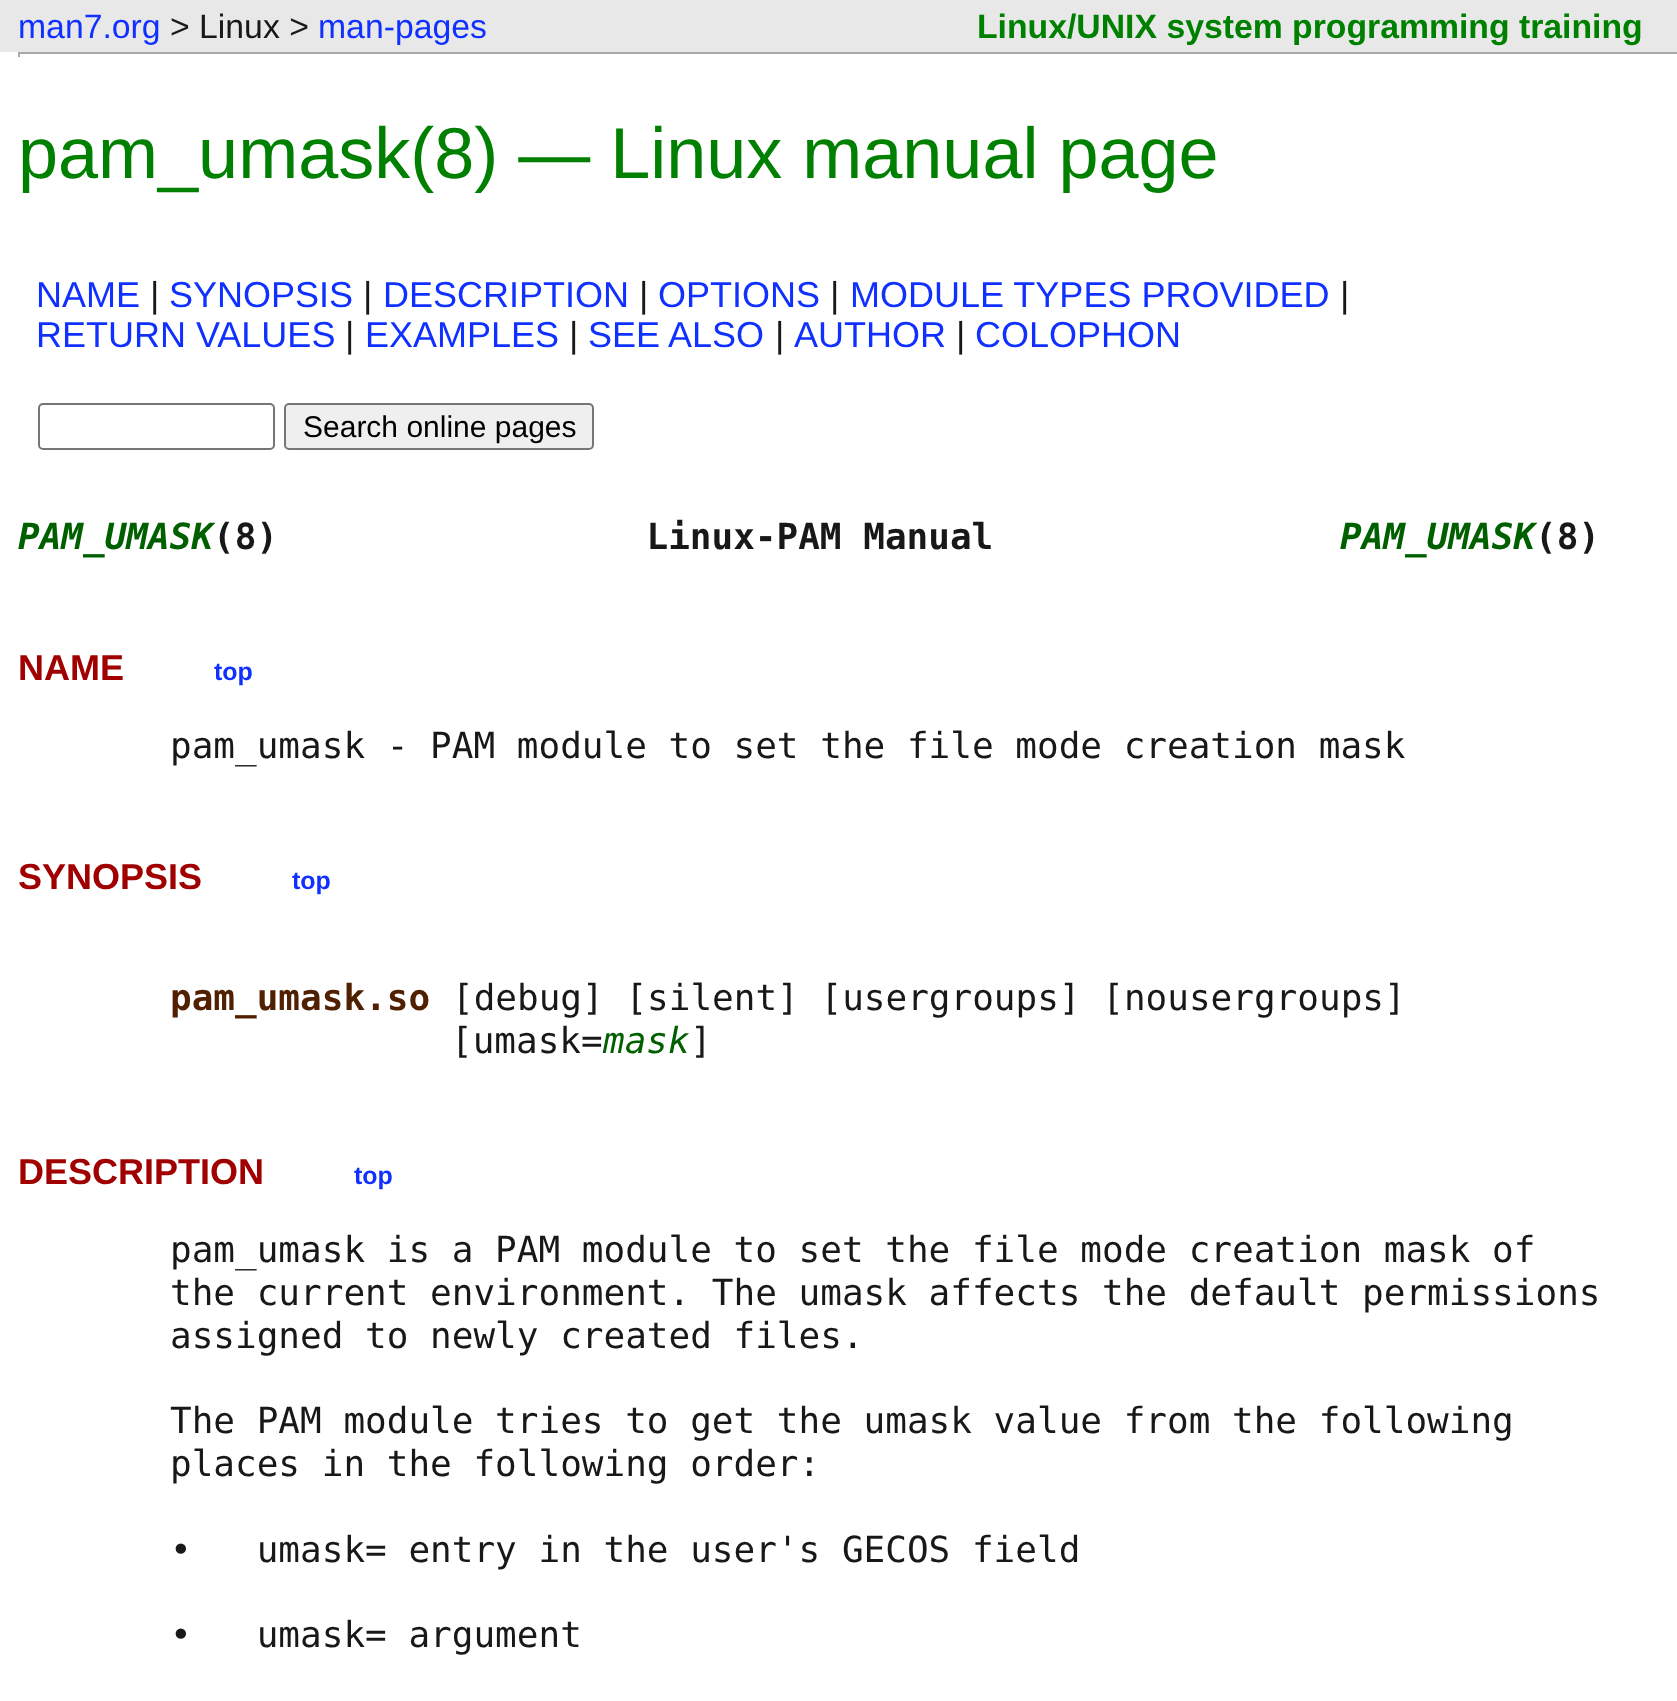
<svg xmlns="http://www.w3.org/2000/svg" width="1677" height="1701">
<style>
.a{font:33.75px Liberation Sans;fill:#1030ff}
.b{font:33.75px Liberation Sans;fill:#181818}
.c{font:bold 33.75px Liberation Sans;fill:#008000}
.d{font:72px Liberation Sans;fill:#008000}
.e{font:36px Liberation Sans;fill:#1030ff}
.f{font:36px Liberation Sans;fill:#181818}
.g{font:30px Liberation Sans;fill:#000}
.h{font:italic bold 36px DejaVu Sans Mono;fill:#006000}
.i{font:bold 36px DejaVu Sans Mono;fill:#181818}
.j{font:bold 36px Liberation Sans;fill:#a00000}
.k{font:bold 25px Liberation Sans;fill:#1030ff}
.l{font:36px DejaVu Sans Mono;fill:#181818}
.m{font:bold 36px DejaVu Sans Mono;fill:#502000}
.n{font:italic 36px DejaVu Sans Mono;fill:#006000}
</style>
<rect width="100%" height="100%" fill="#fff"/>
<path fill="#e8e8e8" d="M0 0h1677v52H0z"/>
<path fill="#aaa" d="M18 52h1659v2H18z"/>
<path fill="#aaa" d="M18 52h2v5H18z"/>
<rect fill="none" stroke="#767676" stroke-width="2" x="39" y="404" width="235" height="45" rx="4"/>
<rect fill="#efefef" stroke="#767676" stroke-width="2" x="285" y="404" width="308" height="45" rx="4"/>
<text class="a" x="18" y="38">man7.org</text>
<text class="b" x="170" y="38">&gt; Linux &gt;</text>
<text class="a" x="318" y="38">man-pages</text>
<text class="c" x="977" y="38">Linux/UNIX system programming training</text>
<text class="d" x="18" y="178">pam_umask(8) — Linux manual page</text>
<text class="e" x="36" y="307">NAME</text>
<text class="f" x="150" y="307">|</text>
<text class="e" x="169" y="307">SYNOPSIS</text>
<text class="f" x="363" y="307">|</text>
<text class="e" x="383" y="307">DESCRIPTION</text>
<text class="f" x="639" y="307">|</text>
<text class="e" x="658" y="307">OPTIONS</text>
<text class="f" x="830" y="307">|</text>
<text class="e" x="850" y="307">MODULE TYPES PROVIDED</text>
<text class="f" x="1340" y="307">|</text>
<text class="e" x="36" y="347">RETURN VALUES</text>
<text class="f" x="345" y="347">|</text>
<text class="e" x="365" y="347">EXAMPLES</text>
<text class="f" x="569" y="347">|</text>
<text class="e" x="588" y="347">SEE ALSO</text>
<text class="f" x="775" y="347">|</text>
<text class="e" x="794" y="347">AUTHOR</text>
<text class="f" x="956" y="347">|</text>
<text class="e" x="975" y="347">COLOPHON</text>
<text class="g" x="303" y="437">Search online pages</text>
<text class="h" x="18" y="549">PAM_UMASK</text>
<text class="i" xml:space="preserve" x="213" y="549">(8)                 Linux-PAM Manual</text>
<text class="h" x="1340" y="549">PAM_UMASK</text>
<text class="i" x="1535" y="549">(8)</text>
<text class="j" x="18" y="680">NAME</text>
<text class="k" x="214" y="680">top</text>
<text class="l" x="170" y="758">pam_umask - PAM module to set the file mode creation mask</text>
<text class="j" x="18" y="889">SYNOPSIS</text>
<text class="k" x="292" y="889">top</text>
<text class="m" x="170" y="1010">pam_umask.so</text>
<text class="l" x="452" y="1010">[debug] [silent] [usergroups] [nousergroups]</text>
<text class="l" x="451" y="1053">[umask=</text>
<text class="n" x="603" y="1053">mask</text>
<text class="l" x="690" y="1053">]</text>
<text class="j" x="18" y="1184">DESCRIPTION</text>
<text class="k" x="354" y="1184">top</text>
<text class="l" x="170" y="1262">pam_umask is a PAM module to set the file mode creation mask of</text>
<text class="l" x="170" y="1305">the current environment. The umask affects the default permissions</text>
<text class="l" x="170" y="1348">assigned to newly created files.</text>
<text class="l" x="170" y="1433">The PAM module tries to get the umask value from the following</text>
<text class="l" x="170" y="1476">places in the following order:</text>
<text class="l" xml:space="preserve" x="170" y="1562">•   umask= entry in the user's GECOS field</text>
<text class="l" xml:space="preserve" x="170" y="1647">•   umask= argument</text>
</svg>
